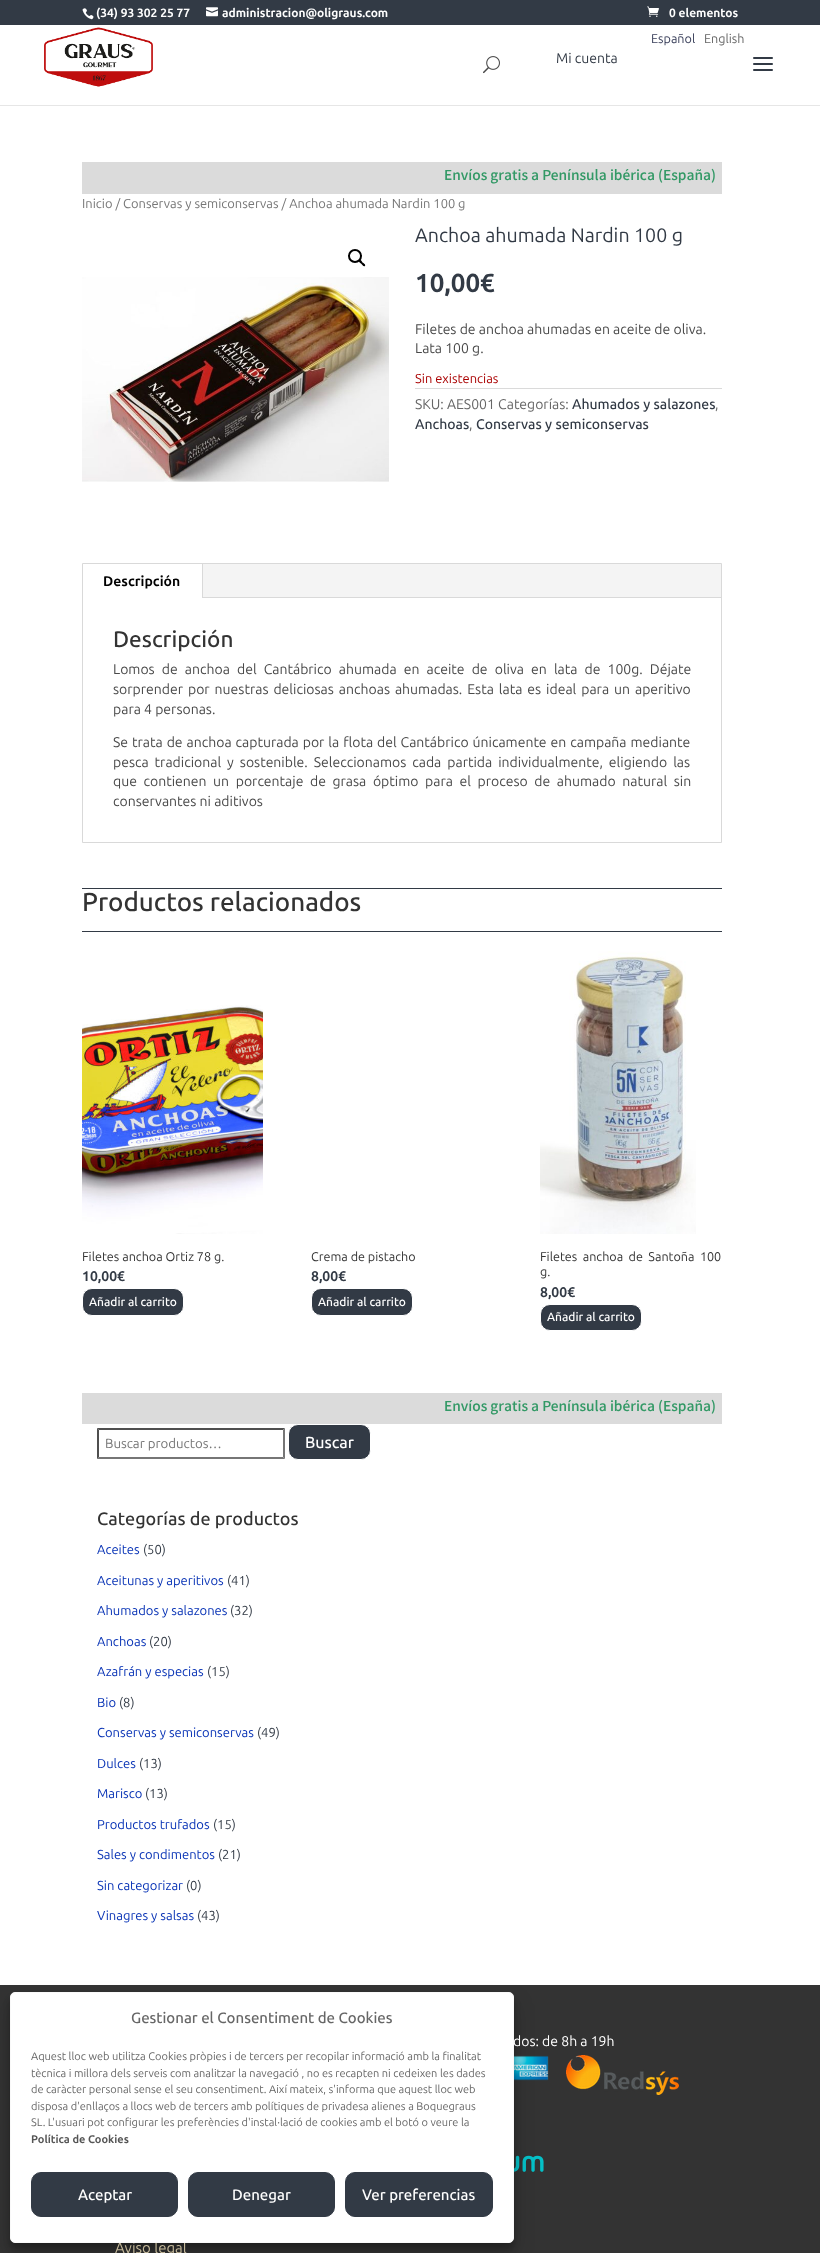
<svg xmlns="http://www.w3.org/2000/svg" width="820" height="2253">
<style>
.a{font:bold 12px Ubuntu;fill:#fff}
.b{font:12.6px Ubuntu;fill:#383e59}
.c{font:12.6px Ubuntu;fill:#666}
.d{font:14px Ubuntu;fill:#323a45}
.e{font:bold 15.4px Varta;fill:#396}
.f{font:12.9px Ubuntu;fill:#767676}
.g{font:19.6px Ubuntu;fill:#323a45}
.h{font:bold 26px Ubuntu;fill:#323a45}
.i{font:14px Ubuntu;fill:#4a4a4a}
.j{font:12.9px Ubuntu;fill:#a00}
.k{font:14px Ubuntu;fill:#666}
.l{font:500 14px Ubuntu;fill:#323a45}
.m{font:bold 14px Ubuntu;fill:#000}
.n{font:500 22.5px Ubuntu;fill:#333}
.o{font:500 26px Ubuntu;fill:#333}
.p{font:12.6px Ubuntu;fill:#333}
.q{font:bold 14px Ubuntu;fill:#323a45}
.r{font:500 12px Ubuntu;fill:#fff}
.s{font:13.25px Ubuntu;fill:#767676}
.t{font:500 16px Ubuntu;fill:#fff}
.u{font:500 18px Ubuntu;fill:#333}
.v{font:13px Ubuntu;fill:#0732b5}
.w{font:13px Ubuntu;fill:#323a45}
.x{font:14px Ubuntu;fill:#fff}
.y{font:15px Ubuntu;fill:#c6ba9b}
.z{font:500 15px Ubuntu;fill:#666}
.a1{font:11px Ubuntu;fill:#666}
.b1{font:bold 11px Ubuntu;fill:#555}
.c1{font:500 15px Ubuntu;fill:#fff}
</style>
<rect width="100%" height="100%" fill="#fff"/>
<path fill="#323a45" d="M0 0h820v25H0z"/>
<image href="1.png" x="82" y="8" width="12" height="12"/>
<image href="2.png" x="206" y="7" width="12" height="10"/>
<image href="3.png" x="647" y="6" width="12" height="11"/>
<path fill="#e6e6e6" d="M0 105h820v1H0z"/>
<image href="4.png" x="44" y="27" width="109" height="60"/>
<image href="5.png" x="483" y="56" width="17" height="18"/>
<image href="6.png" x="753" y="57" width="20" height="14"/>
<path fill="#dbdbdb" d="M82 162h640v32H82z"/>
<circle fill="none" stroke="#000" stroke-width="2" cx="355" cy="256" r="6"/>
<path fill="#000" d="M359 260c1.5-1 3 1.5 3.5 2.5c1 .5 3.5 2 2.5 3.5c-1.5 1-3-1.5-3.5-2c-1-1-3.5-2.5-2.5-4z"/>
<image href="7.png" x="82" y="277" width="307" height="205"/>
<path fill="#dadada" d="M415 388h307v1H415z"/>
<path fill="none" stroke="#d9d9d9" d="M82.5 563.5h639v279H82.5z"/>
<path fill="#f4f4f4" d="M203 564h518v33H203z"/>
<path fill="#d9d9d9" d="M202 564h1v34H202z"/>
<path fill="#d9d9d9" d="M203 597h518v1H203z"/>
<path fill="#323a45" d="M82 888h640v1H82z"/>
<path fill="#323a45" d="M82 931h640v1H82z"/>
<image href="8.png" x="82" y="1005" width="181" height="229"/>
<rect fill="#323a45" stroke="#fff" x="82.5" y="1288.5" width="101" height="27" rx="9.5"/>
<rect fill="#323a45" stroke="#fff" x="311.5" y="1288.5" width="101" height="27" rx="9.5"/>
<image href="9.png" x="540" y="951" width="156" height="283"/>
<rect fill="#323a45" stroke="#fff" x="540.5" y="1304.5" width="101" height="26" rx="9.5"/>
<path fill="#dbdbdb" d="M82 1393h640v31H82z"/>
<path fill="#4f4f4f" d="M97 1428h188l-2 2h-184z"/>
<path fill="#767676" d="M285 1428v31l-2-2v-27z"/>
<path fill="#767676" d="M285 1459h-188l2-2h184z"/>
<path fill="#4f4f4f" d="M97 1459v-31l2 2v27z"/>
<rect fill="#323a45" stroke="#fff" x="288.5" y="1424.5" width="82" height="35" rx="9.5"/>
<path fill="#333" d="M0 1985h820v268H0z"/>
<image href="10.png" x="514" y="2055" width="35" height="26"/>
<image href="11.png" x="566" y="2055" width="113" height="40"/>
<image href="12.png" x="514" y="2155" width="30" height="17"/>
<rect fill="#0000003b" filter="blur(3px)" x="10" y="1998" width="504" height="251" rx="5"/>
<rect fill="#00000030" filter="blur(10px)" x="10" y="2002" width="504" height="251" rx="5"/>
<text class="a" x="96" y="17">(34) 93 302 25 77</text>
<text class="a" x="222" y="17">administracion@oligraus.com</text>
<text class="a" x="669" y="17">0 elementos</text>
<text class="b" x="651" y="43">Español</text>
<text class="c" x="704" y="43">English</text>
<text class="d" x="556" y="63">Mi cuenta</text>
<text class="e" x="444" y="180">Envíos gratis a Península ibérica (España)</text>
<text class="f" x="82" y="208">Inicio / Conservas y semiconservas / Anchoa ahumada Nardin 100 g</text>
<text class="g" x="415" y="242">Anchoa ahumada Nardin 100 g</text>
<text class="h" x="415" y="292">10,00€</text>
<text class="i" x="415" y="334">Filetes de anchoa ahumadas en aceite de oliva.</text>
<text class="i" x="415" y="353">Lata 100 g.</text>
<text class="j" x="415" y="383">Sin existencias</text>
<text class="k" x="415" y="409">SKU: AES001 Categorías:</text>
<text class="l" x="572" y="409">Ahumados y salazones</text>
<text class="k" x="715" y="409">,</text>
<text class="l" x="415" y="429">Anchoas</text>
<text class="k" x="469" y="429">,</text>
<text class="l" x="476" y="429">Conservas y semiconservas</text>
<text class="m" x="103" y="586">Descripción</text>
<text class="n" x="113" y="647">Descripción</text>
<text class="i" x="113" y="674" word-spacing="3.9">Lomos de anchoa del Cantábrico ahumada en aceite de oliva en lata de 100g. Déjate</text>
<text class="i" x="113" y="694" word-spacing="1.75">sorprender por nuestras deliciosas anchoas ahumadas. Esta lata es ideal para un aperitivo</text>
<text class="i" x="113" y="714">para 4 personas.</text>
<text class="i" x="113" y="747" word-spacing="0.75">Se trata de anchoa capturada por la flota del Cantábrico únicamente en campaña mediante</text>
<text class="i" x="113" y="767" word-spacing="2.75">pesca tradicional y sostenible. Seleccionamos cada partida individualmente, eligiendo las</text>
<text class="i" x="113" y="786" word-spacing="3.4">que contienen un porcentaje de grasa óptimo para el proceso de ahumado natural sin</text>
<text class="i" x="113" y="806">conservantes ni aditivos</text>
<text class="o" x="82" y="911">Productos relacionados</text>
<text class="p" x="82" y="1261">Filetes anchoa Ortiz 78 g.</text>
<text class="q" x="82" y="1281">10,00€</text>
<text class="r" x="89" y="1306">Añadir al carrito</text>
<text class="p" x="311" y="1261">Crema de pistacho</text>
<text class="q" x="311" y="1281">8,00€</text>
<text class="r" x="318" y="1306">Añadir al carrito</text>
<text class="p" x="540" y="1261" word-spacing="2.5">Filetes anchoa de Santoña 100</text>
<text class="p" x="540" y="1276">g.</text>
<text class="q" x="540" y="1297">8,00€</text>
<text class="r" x="547" y="1321">Añadir al carrito</text>
<text class="e" x="444" y="1411">Envíos gratis a Península ibérica (España)</text>
<text class="s" x="105" y="1448">Buscar productos…</text>
<text class="t" x="305" y="1448">Buscar</text>
<text class="u" x="97" y="1525">Categorías de productos</text>
<text class="v" x="97" y="1554">Aceites</text>
<text class="w" x="143" y="1554">(50)</text>
<text class="v" x="97" y="1585">Aceitunas y aperitivos</text>
<text class="w" x="227" y="1585">(41)</text>
<text class="v" x="97" y="1615">Ahumados y salazones</text>
<text class="w" x="230" y="1615">(32)</text>
<text class="v" x="97" y="1646">Anchoas</text>
<text class="w" x="149" y="1646">(20)</text>
<text class="v" x="97" y="1676">Azafrán y especias</text>
<text class="w" x="207" y="1676">(15)</text>
<text class="v" x="97" y="1707">Bio</text>
<text class="w" x="119" y="1707">(8)</text>
<text class="v" x="97" y="1737">Conservas y semiconservas</text>
<text class="w" x="257" y="1737">(49)</text>
<text class="v" x="97" y="1768">Dulces</text>
<text class="w" x="139" y="1768">(13)</text>
<text class="v" x="97" y="1798">Marisco</text>
<text class="w" x="145" y="1798">(13)</text>
<text class="v" x="97" y="1829">Productos trufados</text>
<text class="w" x="213" y="1829">(15)</text>
<text class="v" x="97" y="1859">Sales y condimentos</text>
<text class="w" x="218" y="1859">(21)</text>
<text class="v" x="97" y="1890">Sin categorizar</text>
<text class="w" x="186" y="1890">(0)</text>
<text class="v" x="97" y="1920">Vinagres y salsas</text>
<text class="w" x="197" y="1920">(43)</text>
<text class="x" x="513" y="2046">dos: de 8h a 19h</text>
<text class="y" x="115" y="2253">Aviso legal</text>
<rect fill="#fff" stroke="#f9f9f9" x="10.5" y="1992.5" width="503" height="250" rx="4.5"/>
<text class="z" x="131" y="2023">Gestionar el Consentiment de Cookies</text>
<text class="a1" x="31" y="2060">Aquest lloc web utilitza Cookies pròpies i de tercers per recopilar informació amb la finalitat</text>
<text class="a1" x="31" y="2077">tècnica i millora dels serveis com analitzar la navegació , no es recapten ni cedeixen les dades</text>
<text class="a1" x="31" y="2093">de caràcter personal sense el seu consentiment. Així mateix, s'informa que aquest lloc web</text>
<text class="a1" x="31" y="2110">disposa d'enllaços a llocs web de tercers amb polítiques de privadesa alienes a Boquegraus</text>
<text class="a1" x="31" y="2126">SL. L'usuari pot configurar les preferències d'instal·lació de cookies amb el botó o veure la</text>
<text class="b1" x="31" y="2143">Política de Cookies</text>
<rect fill="#323a45" stroke="#323a45" x="31.5" y="2172.5" width="146" height="44" rx="9.5"/>
<text class="c1" x="78" y="2200">Aceptar</text>
<rect fill="#323a45" stroke="#323a45" x="188.5" y="2172.5" width="146" height="44" rx="9.5"/>
<text class="c1" x="232" y="2200">Denegar</text>
<rect fill="#323a45" stroke="#323a45" x="345.5" y="2172.5" width="147" height="44" rx="9.5"/>
<text class="c1" x="362" y="2200">Ver preferencias</text>
</svg>
